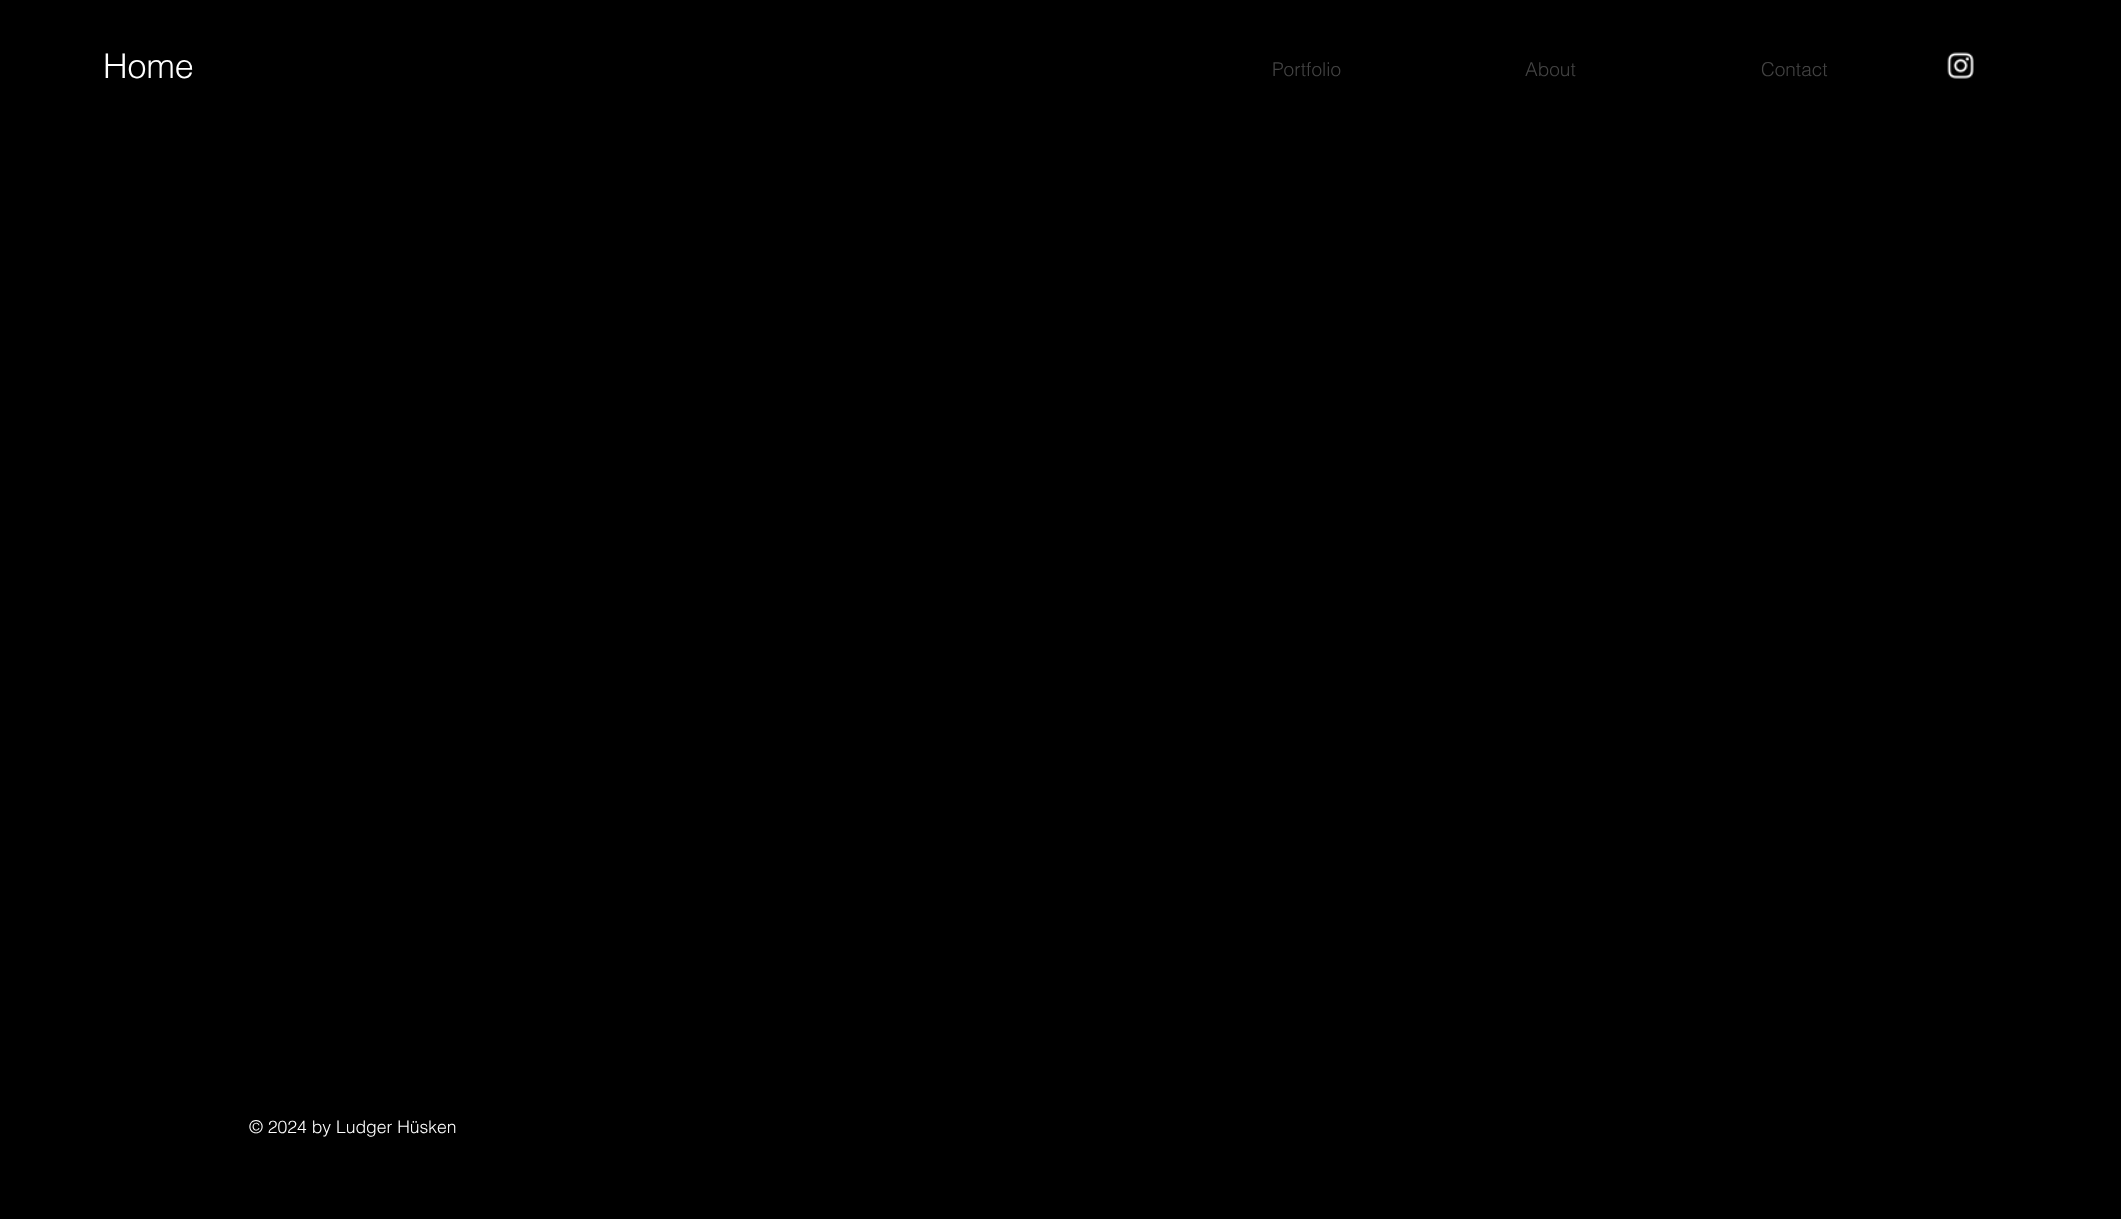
<svg xmlns="http://www.w3.org/2000/svg" width="2121" height="1219">
<style>
.a{font:300 34px helvetica;fill:#fff}
.b{font:300 19px helvetica;fill:#444}
.c{font:300 17.5px helvetica;fill:#fff}
</style>
<rect width="100%" height="100%" fill="#000"/>
<image href="1.png" x="1947" y="52" width="27" height="27"/>
<text class="a" x="103" y="78">Home</text>
<text class="b" x="1272" y="76">Portfolio</text>
<text class="b" x="1525" y="76">About</text>
<text class="b" x="1761" y="76">Contact</text>
<text class="c" x="249" y="1133">© 2024 by Ludger Hüsken</text>
</svg>
